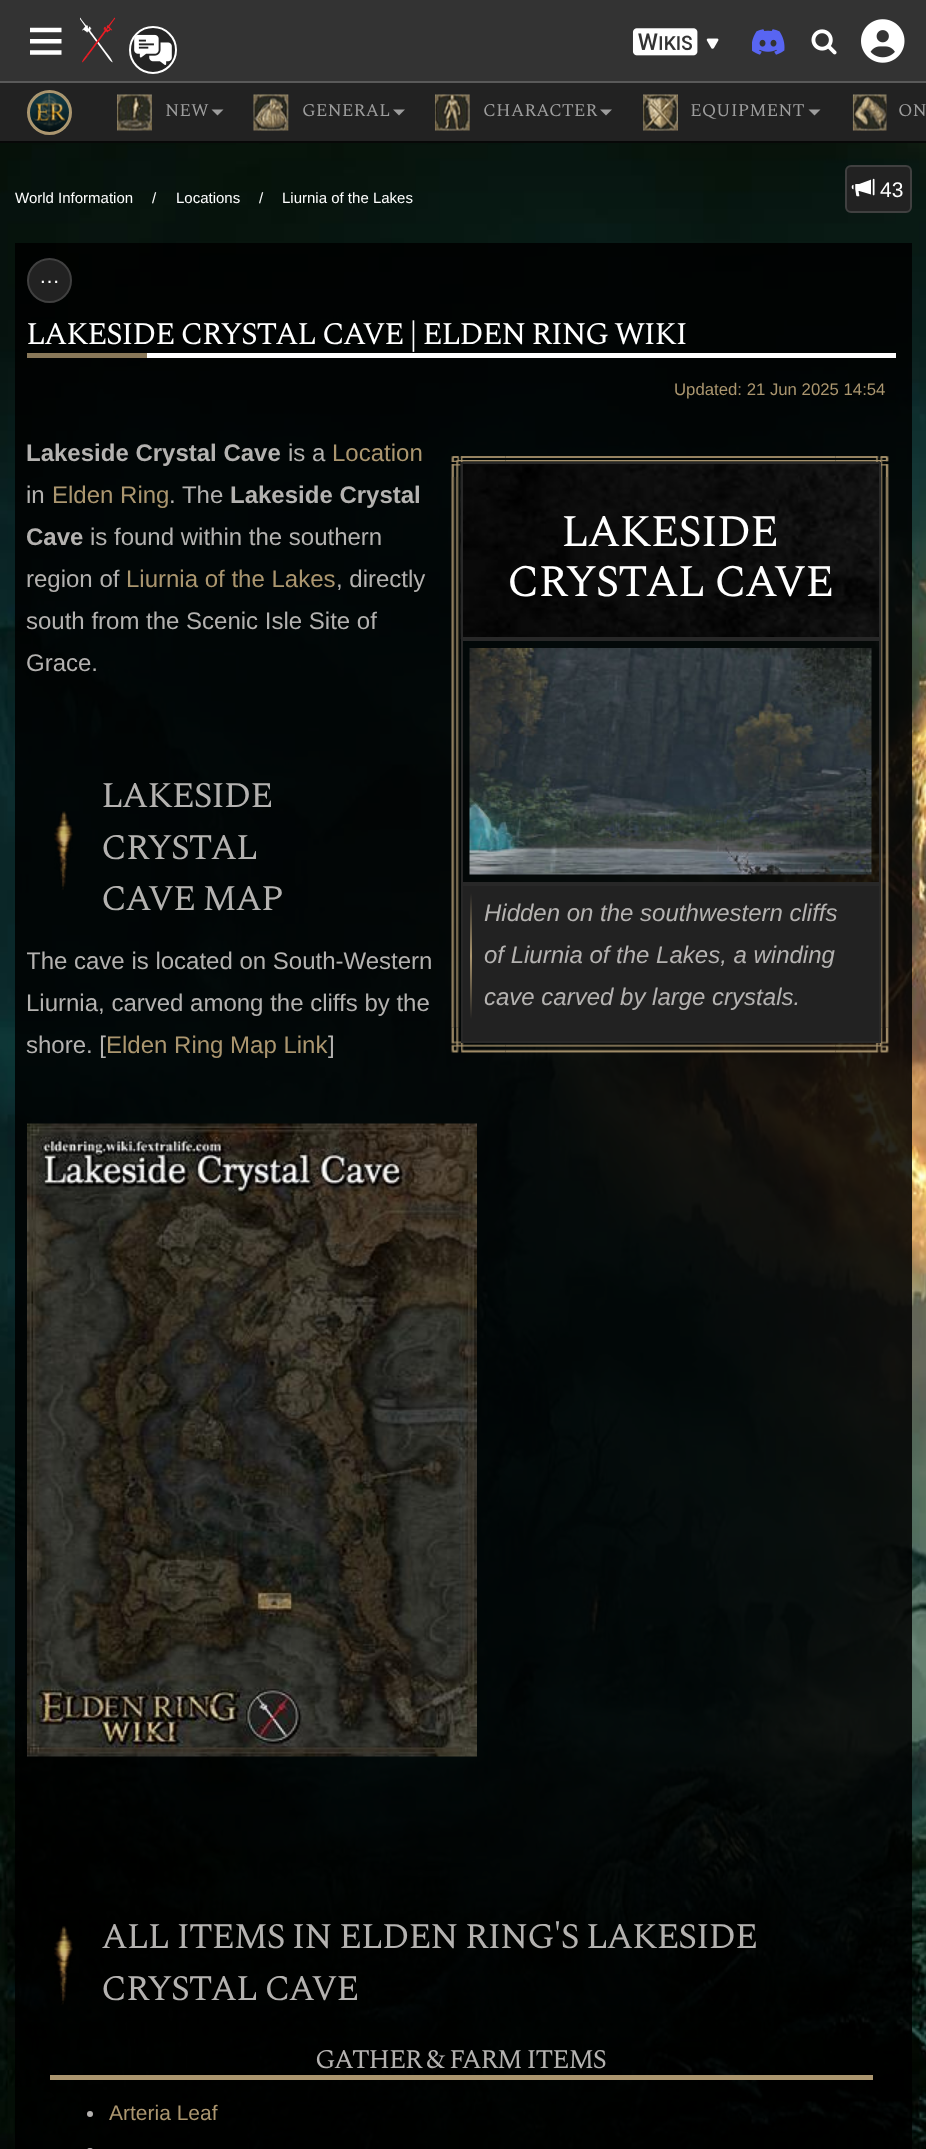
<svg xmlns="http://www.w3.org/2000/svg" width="926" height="2149">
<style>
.a{font:18px Spectral;fill:#9d9d9d}
.b{font:15px Liberation Sans;fill:#fff}
.c{font:21px Liberation Sans;fill:#fff}
.d{font:31.5px Spectral;letter-spacing:-1.5px;fill:#fff}
.e{font:16.75px Liberation Sans;fill:#ab966f}
.f{font:bold 24px Liberation Sans;fill:#b4b2b0}
.g{font:24px Liberation Sans;fill:#b4b2b0}
.h{font:24px Liberation Sans;fill:#ab966f}
.i{font:45px Spectral;letter-spacing:-1.5px;fill:#fff}
.j{font:italic 24px Liberation Sans;fill:#b4b2b0}
.k{font:36px Spectral;letter-spacing:-1.5px;fill:#b4b2b0}
.l{font:27px Spectral;letter-spacing:-1.5px;fill:#b4b2b0}
.m{font:21px Liberation Sans;fill:#ab966f}
</style>
<defs>
<linearGradient id="g1" gradientUnits="userSpaceOnUse" x1="470" y1="893" x2="470" y2="1019"><stop offset="0" stop-color="#222"/><stop offset="0.24" stop-color="#645a47"/><stop offset="0.5" stop-color="#ab966f"/><stop offset="0.79" stop-color="#5c5342"/><stop offset="1" stop-color="#222"/></linearGradient>
<clipPath id="clip1"><path d="M27 288h875v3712H27z"/></clipPath>
</defs>
<rect width="100%" height="100%" fill="#fff"/>
<path fill="#333" d="M0 0h926v81H0z"/>
<path fill="#595959" d="M0 81h926v2H0z"/>
<image href="1.png" x="30" y="27" width="32" height="28"/>
<image href="2.png" x="80" y="17" width="36" height="46"/>
<circle fill="#242424" stroke="#fff" stroke-width="2" cx="153" cy="50" r="23"/>
<image href="3.png" x="134" y="34" width="38" height="31"/>
<image href="4.png" x="632" y="28" width="87" height="28"/>
<image href="5.png" x="752" y="29" width="33" height="26"/>
<image href="6.png" x="811" y="29" width="26" height="26"/>
<image href="7.png" x="861" y="19" width="44" height="44"/>
<path fill="#222" d="M0 83h926v58H0z"/>
<path fill="#080808" d="M0 141h926v2H0z"/>
<image href="8.png" x="30" y="92" width="39" height="41"/>
<circle fill="none" stroke="#ab966f" stroke-width="3" cx="49.5" cy="112.5" r="21"/>
<image href="9.png" x="117" y="94" width="35" height="37"/>
<path fill="#9d9d9d" d="M211.5 109.5h12l-6 6z"/>
<image href="10.png" x="253" y="94" width="36" height="37"/>
<path fill="#9d9d9d" d="M393 109.5h12l-6 6z"/>
<image href="11.png" x="435" y="94" width="35" height="37"/>
<path fill="#9d9d9d" d="M600 109.5h12l-6 6z"/>
<image href="12.png" x="643" y="94" width="35" height="37"/>
<path fill="#9d9d9d" d="M808.5 109.5h12l-6 6z"/>
<image href="13.png" x="852" y="94" width="35" height="37"/>
<image href="14.png" x="0" y="143" width="926" height="2006"/>
<rect fill="#222" stroke="#404040" stroke-width="2" x="846" y="166" width="65" height="46" rx="5"/>
<image href="15.png" x="851" y="178" width="24" height="19"/>
<path fill="#000000d9" d="M15 243h897v1906H15z"/>
<circle fill="#222" stroke="#404040" stroke-width="2" cx="49.5" cy="280.5" r="21.5"/>
<path fill="#fff" d="M147 353h749v5H147z"/>
<path fill="#897859" d="M27 353h120v5H27z"/>
<image href="16.png" x="451" y="456" width="438" height="597"/>
<image href="17.png" x="460" y="462" width="419" height="177"/>
<path fill="none" stroke="#282828" stroke-width="2" d="M462 463h418v175H462z"/>
<path fill="none" stroke="#282828" stroke-width="2" d="M462 640h418v243H462z"/>
<image href="18.png" x="469" y="648" width="403" height="227"/>
<path fill="#222" stroke="#282828" stroke-width="2" d="M462 885h418v157H462z"/>
<path fill="url(#g1)" d="M470 893h2v126H470z"/>
<image href="19.png" x="54" y="811" width="19" height="79"/>
<image href="20.png" x="27" y="1123" width="450" height="634"/>
<image href="21.png" x="54" y="1926" width="19" height="79"/>
<path fill="#ab966f" d="M50 2075h823v5H50z"/>
<circle fill="#b4b2b0" cx="90" cy="2114" r="3"/>
<rect fill="#b4b2b0" x="87" y="2148" width="6" height="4" rx="3"/>
<text class="a" x="165" y="116">NEW</text>
<text class="a" x="302" y="116">GENERAL</text>
<text class="a" x="483" y="116">CHARACTER</text>
<text class="a" x="690" y="116">EQUIPMENT</text>
<text class="a" x="898" y="116">ON</text>
<text class="b" x="15" y="203">World Information</text>
<text class="b" x="152" y="203">/</text>
<text class="b" x="176" y="203">Locations</text>
<text class="b" x="259" y="203">/</text>
<text class="b" x="282" y="203">Liurnia of the Lakes</text>
<text class="c" x="880" y="197">43</text>
<text class="c" x="39" y="283">…</text>
<text class="d" x="26" y="344">LAKESIDE CRYSTAL CAVE | ELDEN RING WIKI</text>
<text class="e" x="674" y="395">Updated: 21 Jun 2025 14:54</text>
<text class="f" x="26" y="461">Lakeside Crystal Cave</text>
<text class="g" x="288" y="461">is a</text>
<text class="h" x="332" y="461">Location</text>
<text class="g" x="26" y="503">in</text>
<text class="h" x="52" y="503">Elden Ring</text>
<text class="g" x="169" y="503">. The</text>
<text class="f" x="230" y="503">Lakeside Crystal</text>
<text class="f" x="26" y="545">Cave</text>
<text class="g" x="90" y="545">is found within the southern</text>
<text class="g" x="26" y="587">region of</text>
<text class="h" x="126" y="587">Liurnia of the Lakes</text>
<text class="g" x="336" y="587">, directly</text>
<text class="g" x="26" y="629">south from the Scenic Isle Site of</text>
<text class="g" x="26" y="671">Grace.</text>
<text class="i" x="561" y="546">LAKESIDE</text>
<text class="i" x="507" y="596">CRYSTAL CAVE</text>
<text class="j" x="484" y="921">Hidden on the southwestern cliffs</text>
<text class="j" x="484" y="963">of Liurnia of the Lakes, a winding</text>
<text class="j" x="484" y="1005">cave carved by large crystals.</text>
<text class="k" x="101" y="807">LAKESIDE</text>
<text class="k" x="101" y="859">CRYSTAL</text>
<text class="k" x="101" y="910">CAVE MAP</text>
<g clip-path="url(#clip1)">
<text class="g" x="26" y="969">The cave is located on South-Western</text>
</g>
<text class="g" x="26" y="1011">Liurnia, carved among the cliffs by the</text>
<text class="g" x="26" y="1053">shore. [</text>
<text class="h" x="106" y="1053">Elden Ring Map Link</text>
<text class="g" x="328" y="1053">]</text>
<text class="k" x="101" y="1948">ALL ITEMS IN ELDEN RING'S LAKESIDE</text>
<text class="k" x="101" y="2000">CRYSTAL CAVE</text>
<text class="l" x="315" y="2068">GATHER &amp; FARM ITEMS</text>
<text class="m" x="109" y="2120">Arteria Leaf</text>
</svg>
